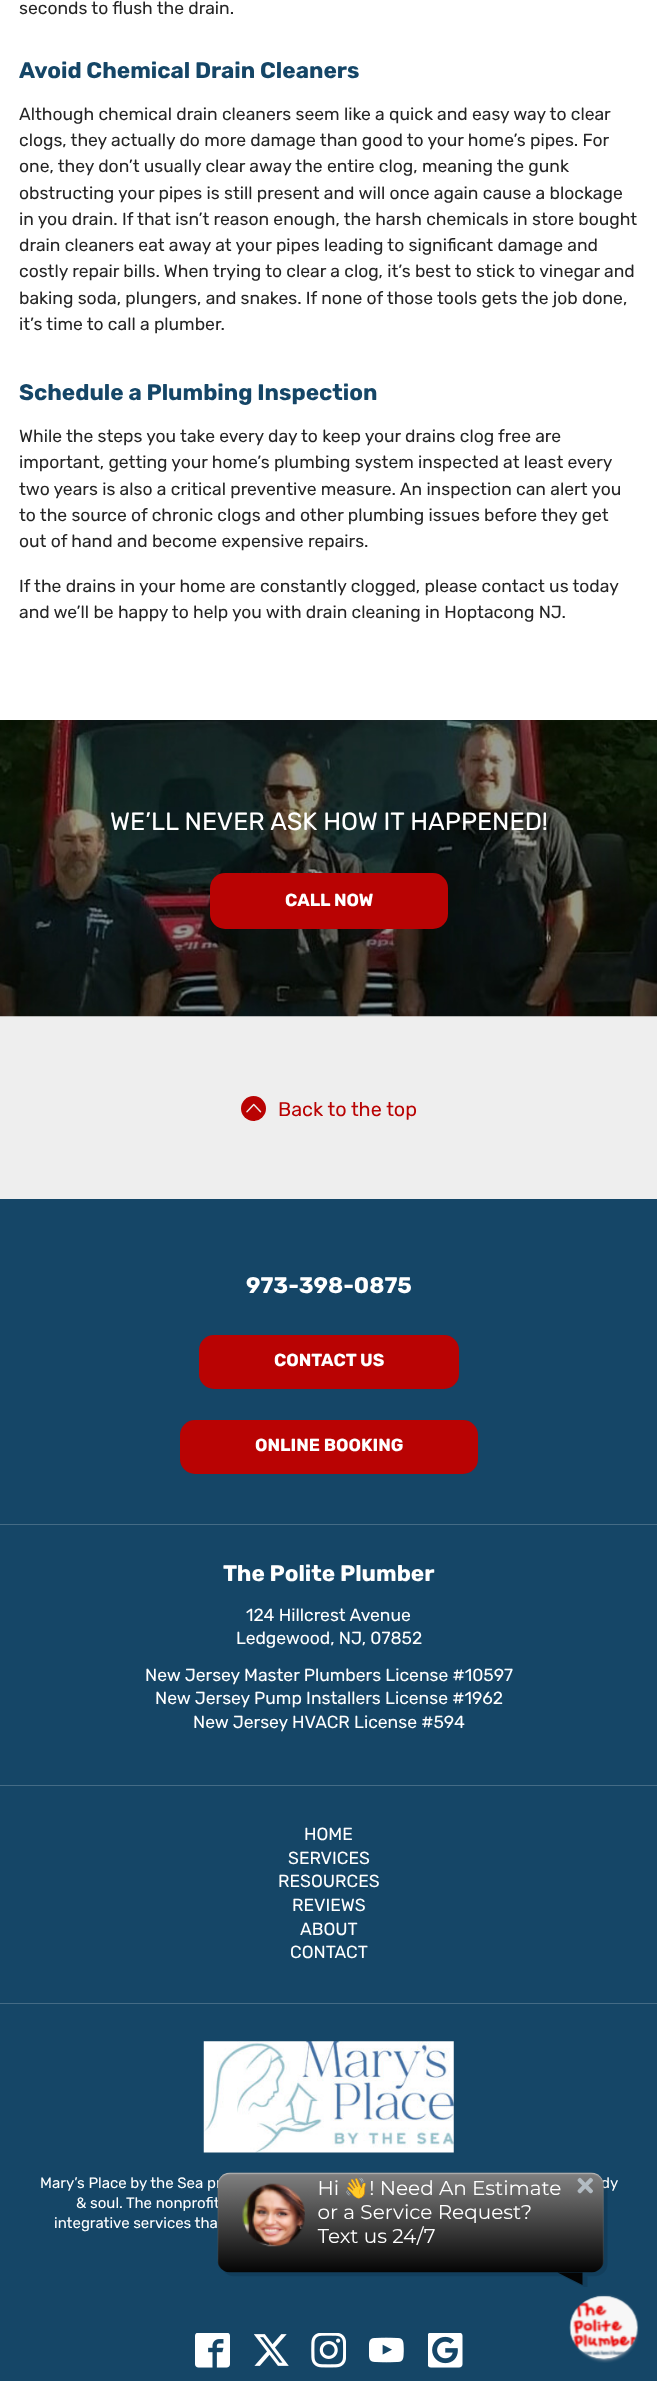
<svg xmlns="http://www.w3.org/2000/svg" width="657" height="2381">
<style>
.a{font:17.5px Rubik;fill:#252525}
.b{font:bold 22.5px Rubik;fill:#154667}
.c{font:25px Rubik;fill:#fff}
.d{font:bold 17.5px Rubik;fill:#fff}
.e{font:19.75px Rubik;fill:#b90303}
.f{font:bold 22.5px Rubik;fill:#fff}
.g{font:17.5px Rubik;fill:#fff}
.h{font:15px Rubik;fill:#fff}
</style>
<rect width="100%" height="100%" fill="#fff"/>
<path fill="#eee" d="M0 1016h657v183H0z"/>
<image href="1.png" x="0" y="720" width="657" height="297"/>
<rect fill="#b90303" x="210" y="873" width="238" height="56" rx="15"/>
<circle fill="#b90303" cx="253.5" cy="1108.5" r="12.5"/>
<image href="2.png" x="246" y="1103" width="16" height="10"/>
<path fill="#154667" d="M0 1199h657v1182H0z"/>
<rect fill="#b90303" x="199" y="1335" width="260" height="54" rx="15"/>
<rect fill="#b90303" x="180" y="1420" width="298" height="54" rx="15"/>
<path fill="#446b85" d="M0 1524h657v1H0z"/>
<path fill="#446b85" d="M0 1785h657v1H0z"/>
<path fill="#446b85" d="M0 2003h657v1H0z"/>
<image href="3.png" x="203" y="2041" width="251" height="112"/>
<image href="4.png" x="195" y="2333" width="35" height="35"/>
<image href="5.png" x="254" y="2334" width="35" height="32"/>
<image href="6.png" x="311" y="2333" width="35" height="35"/>
<image href="7.png" x="369" y="2337" width="35" height="26"/>
<image href="8.png" x="428" y="2333" width="35" height="35"/>
<image href="10.png" x="569" y="2294" width="71" height="69"/>
<text class="a" x="19" y="14">seconds to flush the drain.</text>
<text class="b" x="19" y="78">Avoid Chemical Drain Cleaners</text>
<text class="a" x="19" y="120">Although chemical drain cleaners seem like a quick and easy way to clear</text>
<text class="a" x="19" y="146">clogs, they actually do more damage than good to your home’s pipes. For</text>
<text class="a" x="19" y="172">one, they don’t usually clear away the entire clog, meaning the gunk</text>
<text class="a" x="19" y="199">obstructing your pipes is still present and will once again cause a blockage</text>
<text class="a" x="19" y="225">in you drain. If that isn’t reason enough, the harsh chemicals in store bought</text>
<text class="a" x="19" y="251">drain cleaners eat away at your pipes leading to significant damage and</text>
<text class="a" x="19" y="277">costly repair bills. When trying to clear a clog, it’s best to stick to vinegar and</text>
<text class="a" x="19" y="304">baking soda, plungers, and snakes. If none of those tools gets the job done,</text>
<text class="a" x="19" y="330">it’s time to call a plumber.</text>
<text class="b" x="19" y="400">Schedule a Plumbing Inspection</text>
<text class="a" x="19" y="442">While the steps you take every day to keep your drains clog free are</text>
<text class="a" x="19" y="468">important, getting your home’s plumbing system inspected at least every</text>
<text class="a" x="19" y="495">two years is also a critical preventive measure. An inspection can alert you</text>
<text class="a" x="19" y="521">to the source of chronic clogs and other plumbing issues before they get</text>
<text class="a" x="19" y="547">out of hand and become expensive repairs.</text>
<text class="a" x="19" y="592">If the drains in your home are constantly clogged, please contact us today</text>
<text class="a" x="19" y="618">and we’ll be happy to help you with drain cleaning in Hoptacong NJ.</text>
<text class="c" x="110" y="830">WE’LL NEVER ASK HOW IT HAPPENED!</text>
<text class="d" x="285" y="906">CALL NOW</text>
<text class="e" x="278" y="1116">Back to the top</text>
<text class="f" x="246" y="1293">973-398-0875</text>
<text class="d" x="274" y="1366">CONTACT US</text>
<text class="d" x="255" y="1451">ONLINE BOOKING</text>
<text class="f" x="223" y="1581">The Polite Plumber</text>
<text class="g" x="246" y="1621">124 Hillcrest Avenue</text>
<text class="g" x="236" y="1644">Ledgewood, NJ, 07852</text>
<text class="g" x="145" y="1681">New Jersey Master Plumbers License #10597</text>
<text class="g" x="155" y="1704">New Jersey Pump Installers License #1962</text>
<text class="g" x="193" y="1728">New Jersey HVACR License #594</text>
<text class="g" x="304" y="1840">HOME</text>
<text class="g" x="288" y="1864">SERVICES</text>
<text class="g" x="278" y="1887">RESOURCES</text>
<text class="g" x="292" y="1911">REVIEWS</text>
<text class="g" x="300" y="1935">ABOUT</text>
<text class="g" x="290" y="1958">CONTACT</text>
<text class="h" x="40" y="2188">Mary’s Place by the Sea pr</text>
<text class="h" x="601" y="2188">dy</text>
<text class="h" x="76" y="2208">&amp; soul. The nonprofit</text>
<text class="h" x="54" y="2228">integrative services tha</text>
<image href="9.png" x="217" y="2172" width="391" height="115"/>
</svg>
